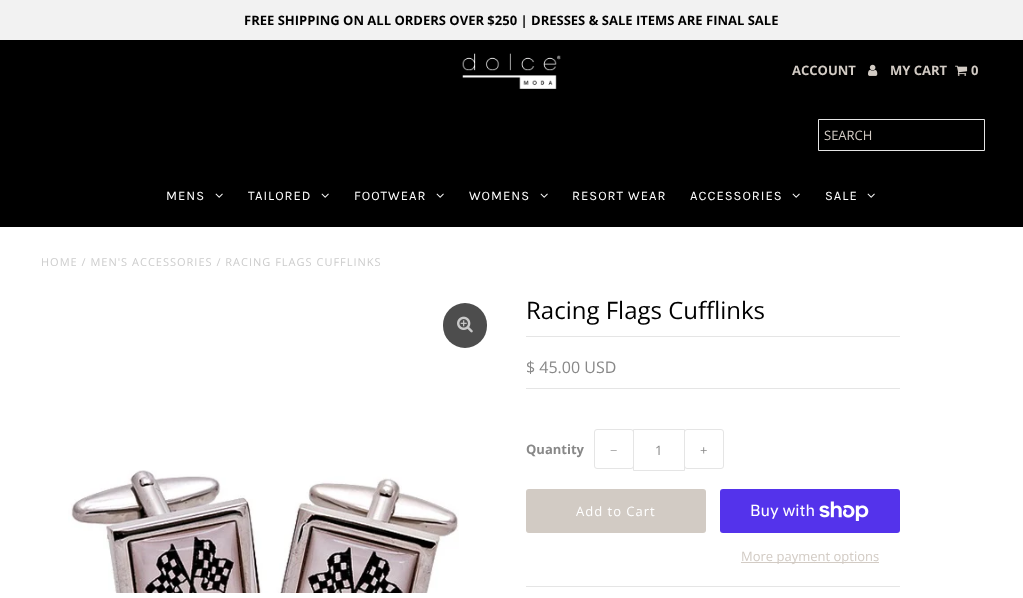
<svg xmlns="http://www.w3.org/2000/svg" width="1023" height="598">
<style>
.a{font:bold 13px Open Sans;fill:#000}
.b{font:bold 13px Open Sans;fill:#d2cbc4}
.c{font:13px Open Sans;fill:#d2cbc4}
.d{font:13px Karla;letter-spacing:1px;fill:#fff}
.e{font:11px Open Sans;letter-spacing:1px;fill:#ccc}
.f{font:24px Open Sans;fill:#000}
.g{font:16px Open Sans;fill:#888}
.h{font:bold 13px Open Sans;fill:#888}
.i{font:13px Liberation Serif;letter-spacing:1px;fill:#888}
.j{font:13px Open Sans;fill:#888}
.k{font:13px Open Sans;letter-spacing:1px;fill:#888}
.l{font:13px Open Sans;letter-spacing:1px;fill:#fff}
.m{font:16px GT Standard;fill:#fff}
</style>
<rect width="100%" height="100%" fill="#fff"/>
<path fill="#f2f2f2" d="M0 0h1023v40H0z"/>
<path fill="#000" d="M0 40h1023v187H0z"/>
<image href="1.png" x="462" y="53" width="99" height="36"/>
<image href="2.png" x="868" y="64" width="10" height="12"/>
<image href="3.png" x="955" y="65" width="13" height="11"/>
<path fill="none" stroke="#e5e5e5" d="M818.5 119.5h166v31H818.5z"/>
<image href="4.png" x="215" y="193" width="8" height="5"/>
<image href="4.png" x="321" y="193" width="8" height="5"/>
<image href="4.png" x="436" y="193" width="8" height="5"/>
<image href="4.png" x="540" y="193" width="8" height="5"/>
<image href="4.png" x="792" y="193" width="8" height="5"/>
<image href="4.png" x="867" y="193" width="8" height="5"/>
<rect fill="#4d4d4d" x="443" y="303" width="44" height="45" rx="22"/>
<image href="5.png" x="457" y="316" width="16" height="17"/>
<image href="6.png" x="68" y="470" width="391" height="123"/>
<path fill="#e5e5e5" d="M526 336h374v1H526z"/>
<path fill="#e5e5e5" d="M526 586h374v1H526z"/>
<path fill="#e5e5e5" d="M526 388h374v1H526z"/>
<rect fill="none" stroke="#e5e5e5" x="594.5" y="429.5" width="39" height="39" rx="2.5"/>
<path fill="none" stroke="#e5e5e5" d="M633.5 429.5h51v41H633.5z"/>
<rect fill="none" stroke="#e5e5e5" x="684.5" y="429.5" width="39" height="39" rx="2.5"/>
<rect fill="#d2cbc4" x="526" y="489" width="180" height="44" rx="3"/>
<rect fill="#5433eb" x="720" y="489" width="180" height="44" rx="3"/>
<image href="7.png" x="819" y="501" width="50" height="20"/>
<path fill="#d2cbc4" d="M741 562h138v1H741z"/>
<text class="a" x="244" y="25">FREE SHIPPING ON ALL ORDERS OVER $250 | DRESSES &amp; SALE ITEMS ARE FINAL SALE</text>
<text class="b" x="792" y="75">ACCOUNT</text>
<text class="b" x="890" y="75">MY CART</text>
<text class="b" x="971" y="75">0</text>
<text class="c" x="824" y="140">SEARCH</text>
<text class="d" x="166" y="200">MENS</text>
<text class="d" x="248" y="200">TAILORED</text>
<text class="d" x="354" y="200">FOOTWEAR</text>
<text class="d" x="469" y="200">WOMENS</text>
<text class="d" x="572" y="200">RESORT WEAR</text>
<text class="d" x="690" y="200">ACCESSORIES</text>
<text class="d" x="825" y="200">SALE</text>
<text class="e" x="41" y="266">HOME / MEN'S ACCESSORIES / RACING FLAGS CUFFLINKS</text>
<text class="f" x="526" y="319">Racing Flags Cufflinks</text>
<text class="g" x="526" y="373">$ 45.00 USD</text>
<text class="h" x="526" y="454">Quantity</text>
<text class="i" x="610" y="455">−</text>
<text class="j" x="655" y="455">1</text>
<text class="k" x="700" y="455">+</text>
<text class="l" x="576" y="516">Add to Cart</text>
<text class="m" x="750" y="516">Buy with</text>
<text class="c" x="741" y="561">More payment options</text>
</svg>
